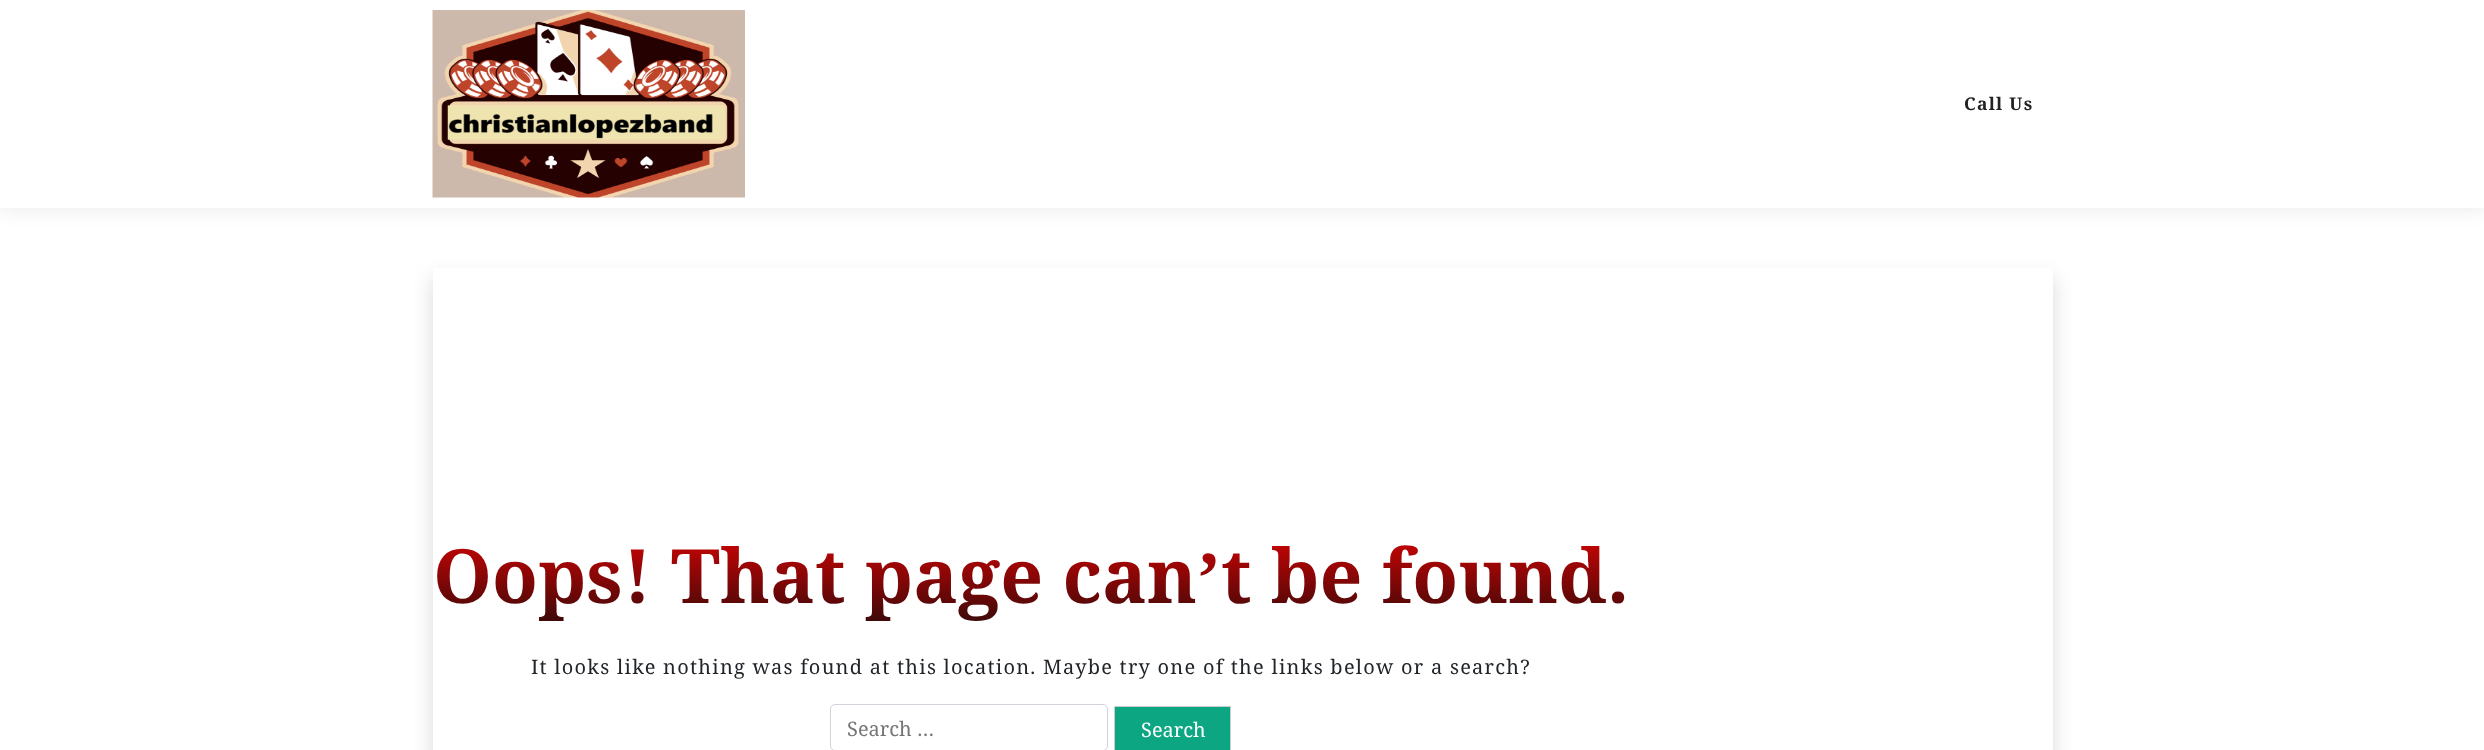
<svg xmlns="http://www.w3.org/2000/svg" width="2484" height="750">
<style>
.a{font:bold 17.5px Noto Serif;letter-spacing:1.25px;fill:#222}
.b{font:bold 75px Koh Santepheap;fill:url(#g1)}
.c{font:bold 75px Liberation Serif;fill:url(#g1)}
.d{font:20px Noto Serif;letter-spacing:1.25px;fill:#212529}
.e{font:20px Noto Serif;fill:#757575}
.f{font:20px Noto Serif;fill:#fff}
</style>
<defs>
<clipPath id="clip1"><path d="M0 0h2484v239h-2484zm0 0h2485v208h-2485z" clip-rule="evenodd"/></clipPath>
<clipPath id="clip2"><path d="M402 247h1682v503h-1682zm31 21h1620v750h-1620z" clip-rule="evenodd"/></clipPath>
<linearGradient id="g1" gradientUnits="userSpaceOnUse" x1="1031" y1="530" x2="1031" y2="620"><stop offset="0" stop-color="#d60303"/><stop offset="1" stop-color="#410909"/></linearGradient>
</defs>
<rect width="100%" height="100%" fill="#fff"/>
<g clip-path="url(#clip1)">
<path fill="#11111a1a" filter="blur(10px)" d="M0 0h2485v208H0z"/>
</g>
<image href="1.png" x="432" y="10" width="313" height="188"/>
<g clip-path="url(#clip2)">
<path fill="#00000026" filter="blur(10px)" d="M433 278h1620v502H433z"/>
</g>
<rect fill="none" stroke="#ced4da" x="830.5" y="704.5" width="277" height="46" rx="4.5"/>
<path fill="#0ca683" stroke="#ccc" d="M1114.5 706.5h116v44H1114.5z"/>
<text class="a" x="1964" y="110">Call Us</text>
<text class="b" x="433" y="603">Oops! That page can</text>
<text class="c" x="1196" y="603">’</text>
<text class="b" x="1221" y="603">t be found.</text>
<text class="d" x="531" y="674">It looks like nothing was found at this location. Maybe try one of the links below or a search?</text>
<text class="e" x="847" y="736">Search …</text>
<text class="f" x="1141" y="737">Search</text>
</svg>
